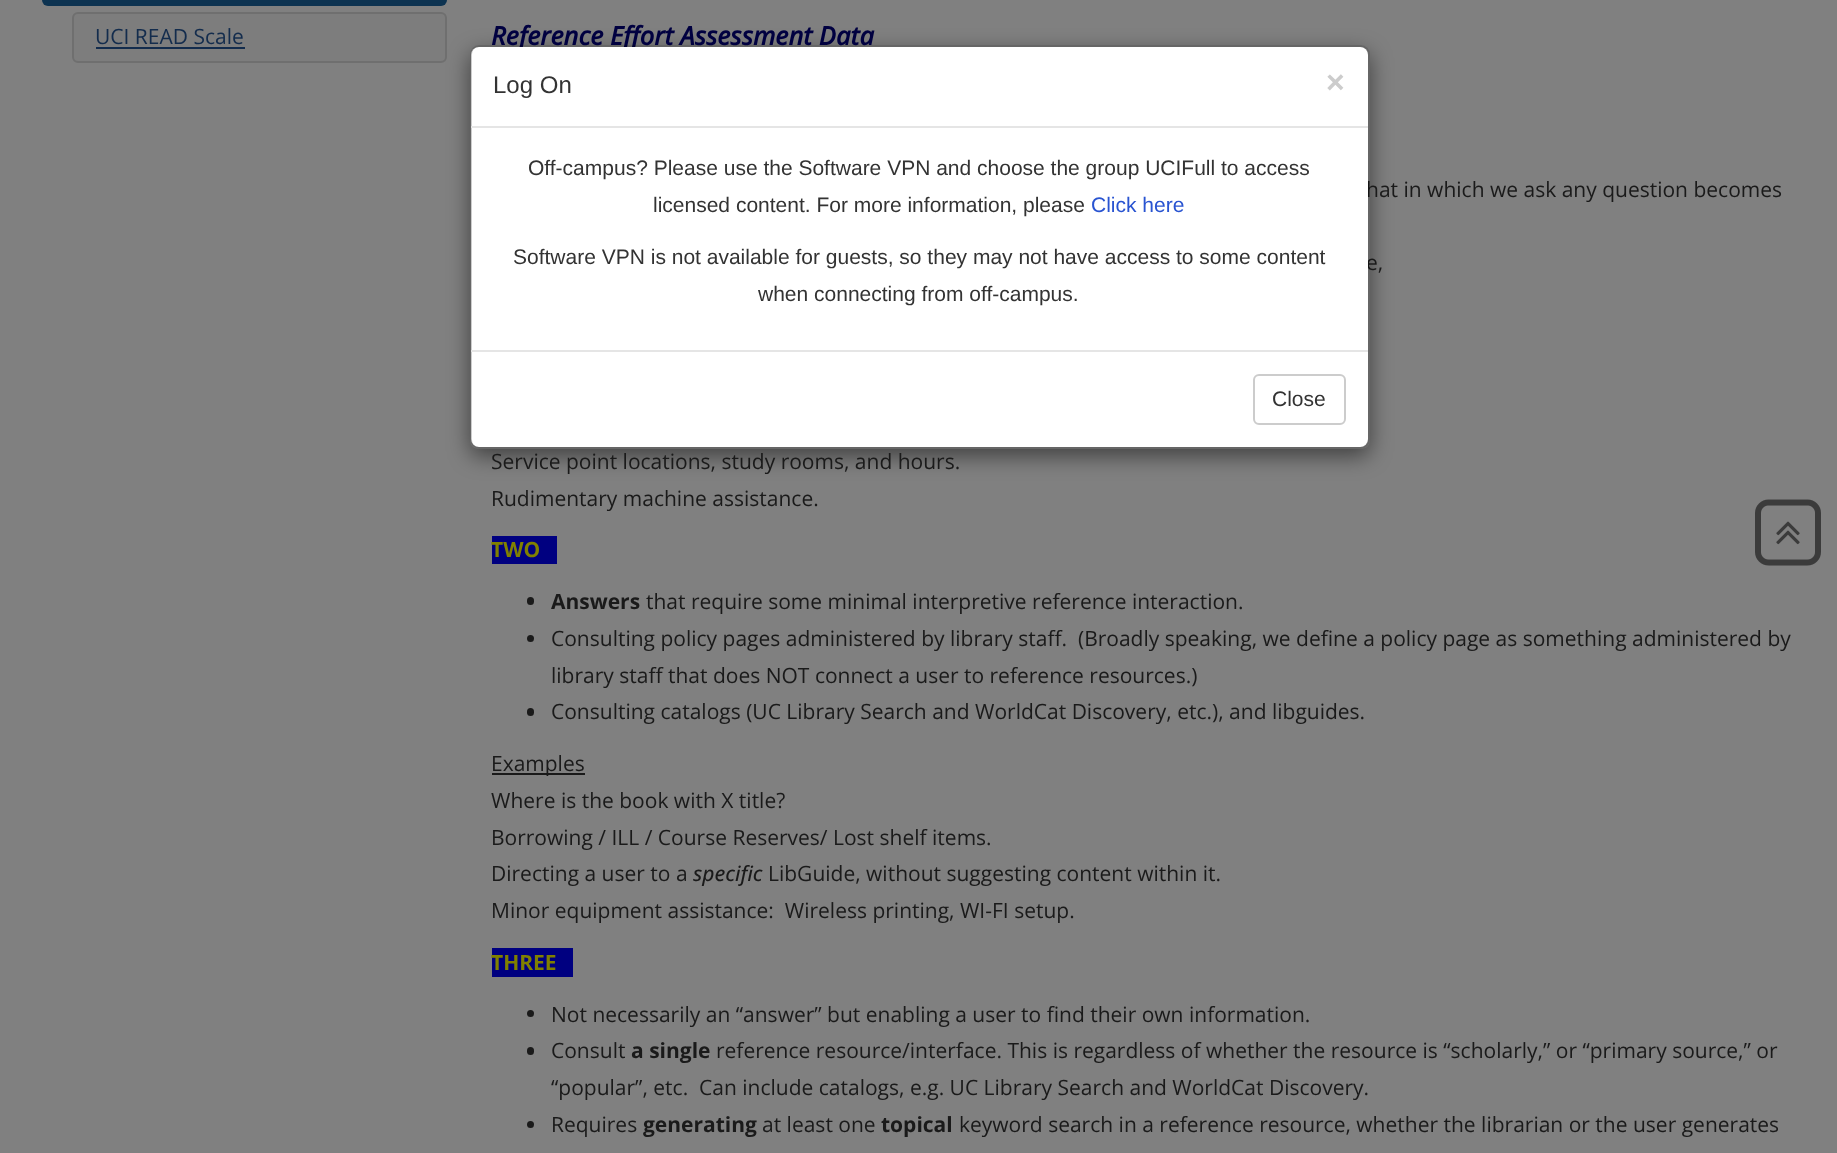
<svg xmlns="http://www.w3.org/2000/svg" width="1837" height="1153">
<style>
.a{font:21px Open Sans;fill:#132c4d}
.b{font:italic bold 25.5px Open Sans;fill:#000040}
.c{font:21px Open Sans;fill:#1a1a1a}
.d{font:bold 21px Open Sans;fill:#808000}
.e{font:bold 21px Open Sans;fill:#1a1a1a}
.f{font:italic 500 21px Open Sans;fill:#1a1a1a}
.g{font:24px Liberation Sans;fill:#333}
.h{font:bold 32px Liberation Sans;fill:#ccc}
.i{font:21px Liberation Sans;fill:#333}
.j{font:21px Liberation Sans;fill:#2954d1}
</style>
<defs>
<clipPath id="clip1"><path d="M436 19h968v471h-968zm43 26h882c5 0 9 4 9 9v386c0 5-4 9-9 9h-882c-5 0-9-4-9-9v-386c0-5 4-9 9-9z" clip-rule="evenodd"/></clipPath>
</defs>
<rect width="100%" height="100%" fill="#808080"/>
<rect fill="#0d3351" x="42" y="-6" width="405" height="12" rx="6"/>
<rect fill="#7d7d7d" stroke="#6f6f6f" stroke-width="2" x="73" y="13" width="373" height="49" rx="5"/>
<path fill="#132c4d" d="M96 47h149v2H96z"/>
<path fill="#000080" d="M492 536h65v28H492z"/>
<rect fill="#1a1a1a" x="527" y="597" width="7" height="8" rx="3.5"/>
<circle fill="#1a1a1a" cx="530.5" cy="638.5" r="3.5"/>
<rect fill="#1a1a1a" x="527" y="708" width="7" height="8" rx="3.5"/>
<path fill="#1a1a1a" d="M492 773h93v2H492z"/>
<path fill="#000080" d="M492 948h81v29H492z"/>
<circle fill="#1a1a1a" cx="530.5" cy="1013.5" r="3.5"/>
<rect fill="#1a1a1a" x="527" y="1047" width="7" height="8" rx="3.5"/>
<circle fill="#1a1a1a" cx="530.5" cy="1124.5" r="3.5"/>
<g clip-path="url(#clip1)">
<rect fill="#00000080" filter="blur(11px)" x="470" y="53" width="900" height="403" rx="9"/>
</g>
<image href="1.png" x="1755" y="499" width="66" height="67"/>
<image href="2.png" x="1776" y="521" width="24" height="24"/>
<text class="a" x="95" y="44">UCI READ Scale</text>
<text class="b" x="491" y="45">Reference Effort Assessment Data</text>
<text class="c" x="1366" y="197">hat in which we ask any question becomes</text>
<text class="c" x="1366" y="270">e,</text>
<text class="c" x="491" y="469">Service point locations, study rooms, and hours.</text>
<text class="c" x="491" y="506">Rudimentary machine assistance.</text>
<text class="d" x="491" y="557">TWO</text>
<text class="e" x="551" y="609">Answers</text>
<text class="c" x="646" y="609">that require some minimal interpretive reference interaction.</text>
<text class="c" xml:space="preserve" x="551" y="646">Consulting policy pages administered by library staff.  (Broadly speaking, we define a policy page as something administered by</text>
<text class="c" x="551" y="683">library staff that does NOT connect a user to reference resources.)</text>
<text class="c" x="551" y="719">Consulting catalogs (UC Library Search and WorldCat Discovery, etc.), and libguides.</text>
<text class="c" x="491" y="771">Examples</text>
<text class="c" x="491" y="808">Where is the book with X title?</text>
<text class="c" x="491" y="845">Borrowing / ILL / Course Reserves/ Lost shelf items.</text>
<text class="c" x="491" y="881">Directing a user to a</text>
<text class="f" x="693" y="881">specific</text>
<text class="c" x="768" y="881">LibGuide, without suggesting content within it.</text>
<text class="c" xml:space="preserve" x="491" y="918">Minor equipment assistance:  Wireless printing, WI-FI setup.</text>
<text class="d" x="491" y="970">THREE</text>
<text class="c" x="551" y="1022">Not necessarily an “answer” but enabling a user to find their own information.</text>
<text class="c" x="551" y="1058">Consult</text>
<text class="e" x="631" y="1058">a single</text>
<text class="c" x="716" y="1058">reference resource/interface. This is regardless of whether the resource is “scholarly,” or “primary source,” or</text>
<text class="c" xml:space="preserve" x="551" y="1095">“popular”, etc.  Can include catalogs, e.g. UC Library Search and WorldCat Discovery.</text>
<text class="c" x="551" y="1132">Requires</text>
<text class="e" x="643" y="1132">generating</text>
<text class="c" x="762" y="1132">at least one</text>
<text class="e" x="881" y="1132">topical</text>
<text class="c" x="959" y="1132">keyword search in a reference resource, whether the librarian or the user generates</text>
<rect fill="#fff" x="471" y="47" width="897" height="400" rx="8"/>
<rect fill="none" stroke="#00000033" stroke-width="2" x="471" y="46" width="898" height="402" rx="8"/>
<path fill="#e5e5e5" d="M471 126h897v2H471z"/>
<text class="g" x="493" y="93">Log On</text>
<text class="h" x="1326" y="93">×</text>
<text class="i" x="528" y="175">Off-campus? Please use the Software VPN and choose the group UCIFull to access</text>
<text class="i" x="653" y="212">licensed content. For more information, please</text>
<text class="j" x="1091" y="212">Click here</text>
<text class="i" x="513" y="264">Software VPN is not available for guests, so they may not have access to some content</text>
<text class="i" x="758" y="301">when connecting from off-campus.</text>
<path fill="#e5e5e5" d="M471 350h897v2H471z"/>
<rect fill="none" stroke="#ccc" stroke-width="2" x="1254" y="375" width="91" height="49" rx="5"/>
<text class="i" x="1272" y="406">Close</text>
</svg>
